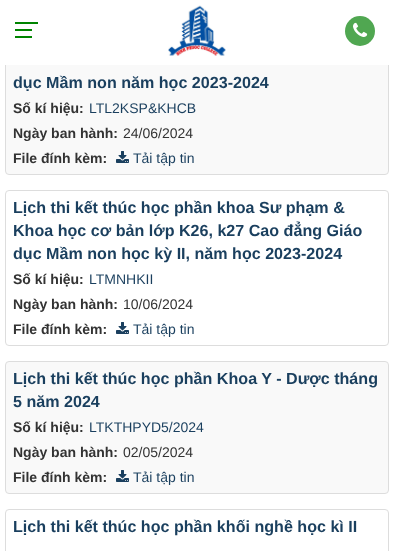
<svg xmlns="http://www.w3.org/2000/svg" width="394" height="551">
<style>
.a{font:bold 16.1px Liberation Sans;fill:#1a3f5e}
.b{font:bold 14px Liberation Sans;fill:#333}
.c{font:14px Liberation Sans;fill:#1a3f5e}
.d{font:14px Liberation Sans;fill:#333}
</style>
<rect width="100%" height="100%" fill="#fff"/>
<rect fill="#f9f9f9" stroke="#ddd" x="5.5" y="19.5" width="383" height="155" rx="3.5"/>
<path fill="#0000004d" filter="blur(0.5px)" d="M0 0h394v65H0z"/>
<path fill="#fff" d="M0 0h394v65H0z"/>
<path fill="#008400" d="M15 29h17v2H15z"/>
<path fill="#008400" d="M15 22h23v2H15z"/>
<path fill="#008400" d="M15 36h17v2H15z"/>
<image href="1.png" x="168" y="5" width="58" height="51"/>
<circle fill="#50a751" cx="360" cy="31" r="15"/>
<image href="2.png" x="353" y="22" width="15" height="15"/>
<image href="3.png" x="116" y="151" width="13" height="12"/>
<rect fill="none" stroke="#ddd" x="5.5" y="190.5" width="383" height="155" rx="3.5"/>
<image href="4.png" x="116" y="322" width="13" height="12"/>
<rect fill="#f9f9f9" stroke="#ddd" x="5.5" y="361.5" width="383" height="132" rx="3.5"/>
<image href="3.png" x="116" y="470" width="13" height="12"/>
<rect fill="none" stroke="#ddd" x="5.5" y="509.5" width="383" height="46" rx="3.5"/>
<text class="a" x="13" y="88">dục Mầm non năm học 2023-2024</text>
<text class="b" x="13" y="113">Số kí hiệu:</text>
<text class="c" x="89" y="113">LTL2KSP&amp;KHCB</text>
<text class="b" x="13" y="138">Ngày ban hành:</text>
<text class="d" x="123" y="138">24/06/2024</text>
<text class="b" x="13" y="163">File đính kèm:</text>
<text class="c" x="133" y="163">Tải tập tin</text>
<text class="a" x="13" y="213">Lịch thi kết thúc học phần khoa Sư phạm &amp;</text>
<text class="a" x="13" y="236">Khoa học cơ bản lớp K26, k27 Cao đẳng Giáo</text>
<text class="a" x="13" y="259">dục Mầm non học kỳ II, năm học 2023-2024</text>
<text class="b" x="13" y="284">Số kí hiệu:</text>
<text class="c" x="89" y="284">LTMNHKII</text>
<text class="b" x="13" y="309">Ngày ban hành:</text>
<text class="d" x="123" y="309">10/06/2024</text>
<text class="b" x="13" y="334">File đính kèm:</text>
<text class="c" x="133" y="334">Tải tập tin</text>
<text class="a" x="13" y="384">Lịch thi kết thúc học phần Khoa Y - Dược tháng</text>
<text class="a" x="13" y="407">5 năm 2024</text>
<text class="b" x="13" y="432">Số kí hiệu:</text>
<text class="c" x="89" y="432">LTKTHPYD5/2024</text>
<text class="b" x="13" y="457">Ngày ban hành:</text>
<text class="d" x="123" y="457">02/05/2024</text>
<text class="b" x="13" y="482">File đính kèm:</text>
<text class="c" x="133" y="482">Tải tập tin</text>
<text class="a" x="13" y="532">Lịch thi kết thúc học phần khối nghề học kì II</text>
</svg>
